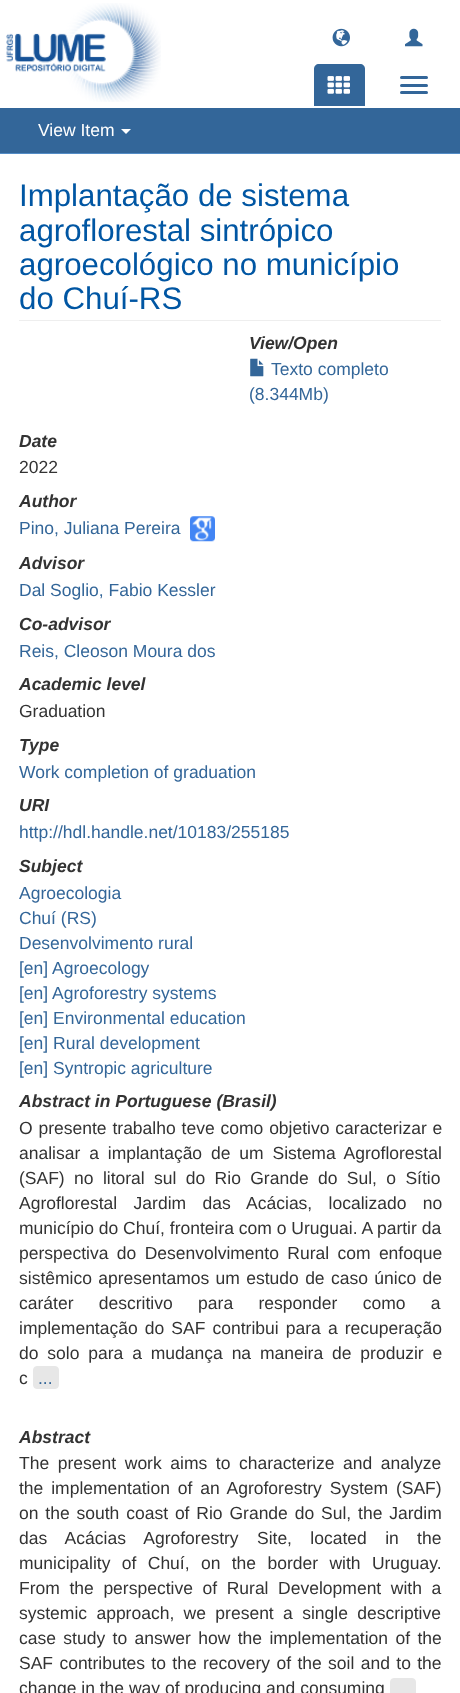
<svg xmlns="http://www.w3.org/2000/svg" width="460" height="1693">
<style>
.a{font:17.5px Liberation Sans;fill:#fff}
.b{font:31.25px Liberation Sans;fill:#0056a3}
.c{font:italic bold 17.5px Liberation Sans;fill:#333}
.d{font:17.5px Liberation Sans;fill:#369}
.e{font:17.5px Liberation Sans;fill:#333}
</style>
<rect width="100%" height="100%" fill="#fff"/>
<image href="1.png" x="6" y="3" width="155" height="99"/>
<image href="2.png" x="332" y="28" width="18" height="19"/>
<image href="3.png" x="405" y="28" width="18" height="19"/>
<path fill="#369" d="M319 64h41c3 0 5 2 5 5v37h-51v-37c0-3 2-5 5-5z"/>
<image href="4.png" x="327" y="76" width="23" height="18"/>
<rect fill="#369" x="400" y="76" width="28" height="3" rx="1.5"/>
<rect fill="#369" x="400" y="84" width="28" height="3" rx="1.5"/>
<rect fill="#369" x="400" y="91" width="28" height="3" rx="1.5"/>
<path fill="#369" d="M0 108h460v45H0z"/>
<path fill="#538cc6" d="M0 153h460v1H0z"/>
<path fill="#fff" d="M121 129h10l-5 5z"/>
<path fill="#eee" d="M19 320h422v1H19z"/>
<image href="5.png" x="250" y="358" width="14" height="19"/>
<image href="6.png" x="190" y="516" width="25" height="26"/>
<rect fill="#e7e7e7" stroke="#e7e7e7" x="33.5" y="1366.5" width="25" height="22" rx="3.5"/>
<rect fill="#e7e7e7" stroke="#e7e7e7" x="390.5" y="1678.5" width="25" height="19" rx="3.5"/>
<text class="a" x="38" y="136">View Item</text>
<text class="b" x="19" y="206">Implantação de sistema</text>
<text class="b" x="19" y="241">agroflorestal sintrópico</text>
<text class="b" x="19" y="275">agroecológico no município</text>
<text class="b" x="19" y="309">do Chuí-RS</text>
<text class="c" x="249" y="349">View/Open</text>
<text class="d" x="271" y="375">Texto completo</text>
<text class="d" x="249" y="400">(8.344Mb)</text>
<text class="c" x="19" y="447">Date</text>
<text class="e" x="19" y="473">2022</text>
<text class="c" x="19" y="507">Author</text>
<text class="d" x="19" y="534">Pino, Juliana Pereira</text>
<text class="c" x="19" y="569">Advisor</text>
<text class="d" x="19" y="596">Dal Soglio, Fabio Kessler</text>
<text class="c" x="19" y="630">Co-advisor</text>
<text class="d" x="19" y="657">Reis, Cleoson Moura dos</text>
<text class="c" x="19" y="690">Academic level</text>
<text class="e" x="19" y="717">Graduation</text>
<text class="c" x="19" y="751">Type</text>
<text class="d" x="19" y="778">Work completion of graduation</text>
<text class="c" x="19" y="811">URI</text>
<text class="d" x="19" y="838">http://hdl.handle.net/10183/255185</text>
<text class="c" x="19" y="872">Subject</text>
<text class="d" x="19" y="899">Agroecologia</text>
<text class="d" x="19" y="924">Chuí (RS)</text>
<text class="d" x="19" y="949">Desenvolvimento rural</text>
<text class="d" x="19" y="974">[en] Agroecology</text>
<text class="d" x="19" y="999">[en] Agroforestry systems</text>
<text class="d" x="19" y="1024">[en] Environmental education</text>
<text class="d" x="19" y="1049">[en] Rural development</text>
<text class="d" x="19" y="1074">[en] Syntropic agriculture</text>
<text class="c" x="19" y="1107">Abstract in Portuguese (Brasil)</text>
<text class="e" x="19" y="1134" word-spacing="1">O presente trabalho teve como objetivo caracterizar e</text>
<text class="e" x="19" y="1159" word-spacing="4">analisar a implantação de um Sistema Agroflorestal</text>
<text class="e" x="19" y="1184" word-spacing="4.5">(SAF) no litoral sul do Rio Grande do Sul, o Sítio</text>
<text class="e" x="19" y="1209" word-spacing="11.5">Agroflorestal Jardim das Acácias, localizado no</text>
<text class="e" x="19" y="1234">município do Chuí, fronteira com o Uruguai. A partir da</text>
<text class="e" x="19" y="1259" word-spacing="3.5">perspectiva do Desenvolvimento Rural com enfoque</text>
<text class="e" x="19" y="1284" word-spacing="1.5">sistêmico apresentamos um estudo de caso único de</text>
<text class="e" x="19" y="1309" word-spacing="20.5">caráter descritivo para responder como a</text>
<text class="e" x="19" y="1334" word-spacing="2.25">implementação do SAF contribui para a recuperação</text>
<text class="e" x="19" y="1359" word-spacing="4">do solo para a mudança na maneira de produzir e</text>
<text class="e" x="19" y="1384">c</text>
<text class="d" x="38" y="1384">...</text>
<text class="c" x="19" y="1443">Abstract</text>
<text class="e" x="19" y="1469" word-spacing="3.75">The present work aims to characterize and analyze</text>
<text class="e" x="19" y="1494" word-spacing="3">the implementation of an Agroforestry System (SAF)</text>
<text class="e" x="19" y="1519" word-spacing="2">on the south coast of Rio Grande do Sul, the Jardim</text>
<text class="e" x="19" y="1544" word-spacing="13.5">das Acácias Agroforestry Site, located in the</text>
<text class="e" x="19" y="1569" word-spacing="6.5">municipality of Chuí, on the border with Uruguay.</text>
<text class="e" x="19" y="1594" word-spacing="4.75">From the perspective of Rural Development with a</text>
<text class="e" x="19" y="1619" word-spacing="4.5">systemic approach, we present a single descriptive</text>
<text class="e" x="19" y="1644" word-spacing="2.5">case study to answer how the implementation of the</text>
<text class="e" x="19" y="1669" word-spacing="1.5">SAF contributes to the recovery of the soil and to the</text>
<text class="e" x="19" y="1694">change in the way of producing and consuming</text>
</svg>
